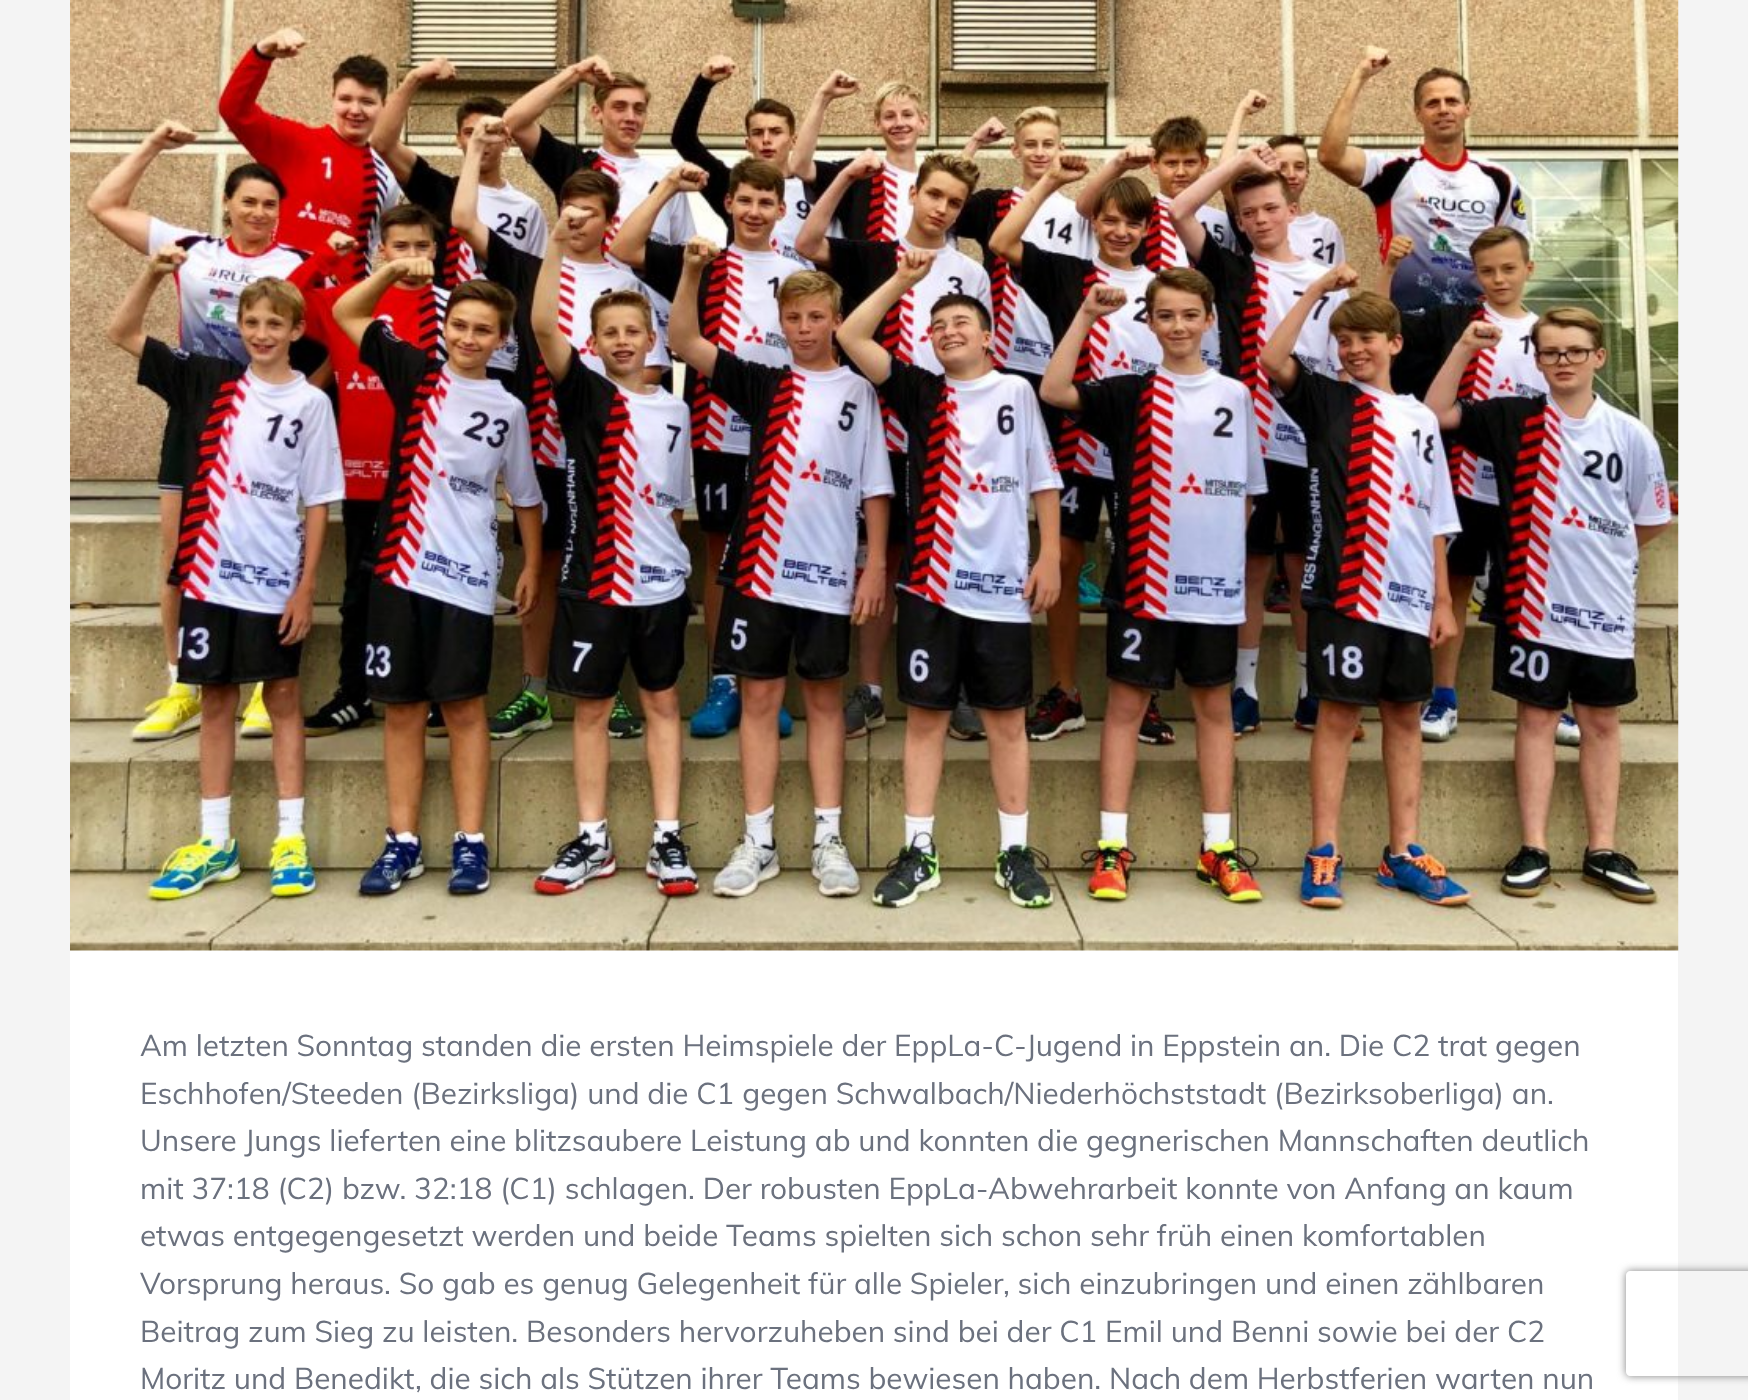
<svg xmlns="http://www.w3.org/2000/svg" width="1748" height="1400">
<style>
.a{font:29.75px Muli;fill:#6b717e}
</style>
<defs>
<clipPath id="clip1"><path d="M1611 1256h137v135h-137zm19 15h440c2 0 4 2 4 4v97c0 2-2 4-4 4h-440c-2 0-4-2-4-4v-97c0-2 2-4 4-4z" clip-rule="evenodd"/></clipPath>
</defs>
<rect width="100%" height="100%" fill="#f4f4f4"/>
<path fill="#fff" d="M70 950h1608v450H70z"/>
<image href="1.png" x="70" y="0" width="1609" height="951"/>
<g clip-path="url(#clip1)">
<rect fill="#808080" filter="blur(4.5px)" x="1626" y="1271" width="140" height="105" rx="4"/>
</g>
<text class="a" x="140" y="1056">Am letzten Sonntag standen die ersten Heimspiele der EppLa-C-Jugend in Eppstein an. Die C2 trat gegen</text>
<text class="a" x="140" y="1104">Eschhofen/Steeden (Bezirksliga) und die C1 gegen Schwalbach/Niederhöchststadt (Bezirksoberliga) an.</text>
<text class="a" x="140" y="1151">Unsere Jungs lieferten eine blitzsaubere Leistung ab und konnten die gegnerischen Mannschaften deutlich</text>
<text class="a" x="140" y="1199">mit 37:18 (C2) bzw. 32:18 (C1) schlagen. Der robusten EppLa-Abwehrarbeit konnte von Anfang an kaum</text>
<text class="a" x="140" y="1246">etwas entgegengesetzt werden und beide Teams spielten sich schon sehr früh einen komfortablen</text>
<text class="a" x="140" y="1294">Vorsprung heraus. So gab es genug Gelegenheit für alle Spieler, sich einzubringen und einen zählbaren</text>
<text class="a" x="140" y="1342">Beitrag zum Sieg zu leisten. Besonders hervorzuheben sind bei der C1 Emil und Benni sowie bei der C2</text>
<text class="a" x="140" y="1389">Moritz und Benedikt, die sich als Stützen ihrer Teams bewiesen haben. Nach dem Herbstferien warten nun</text>
</svg>
